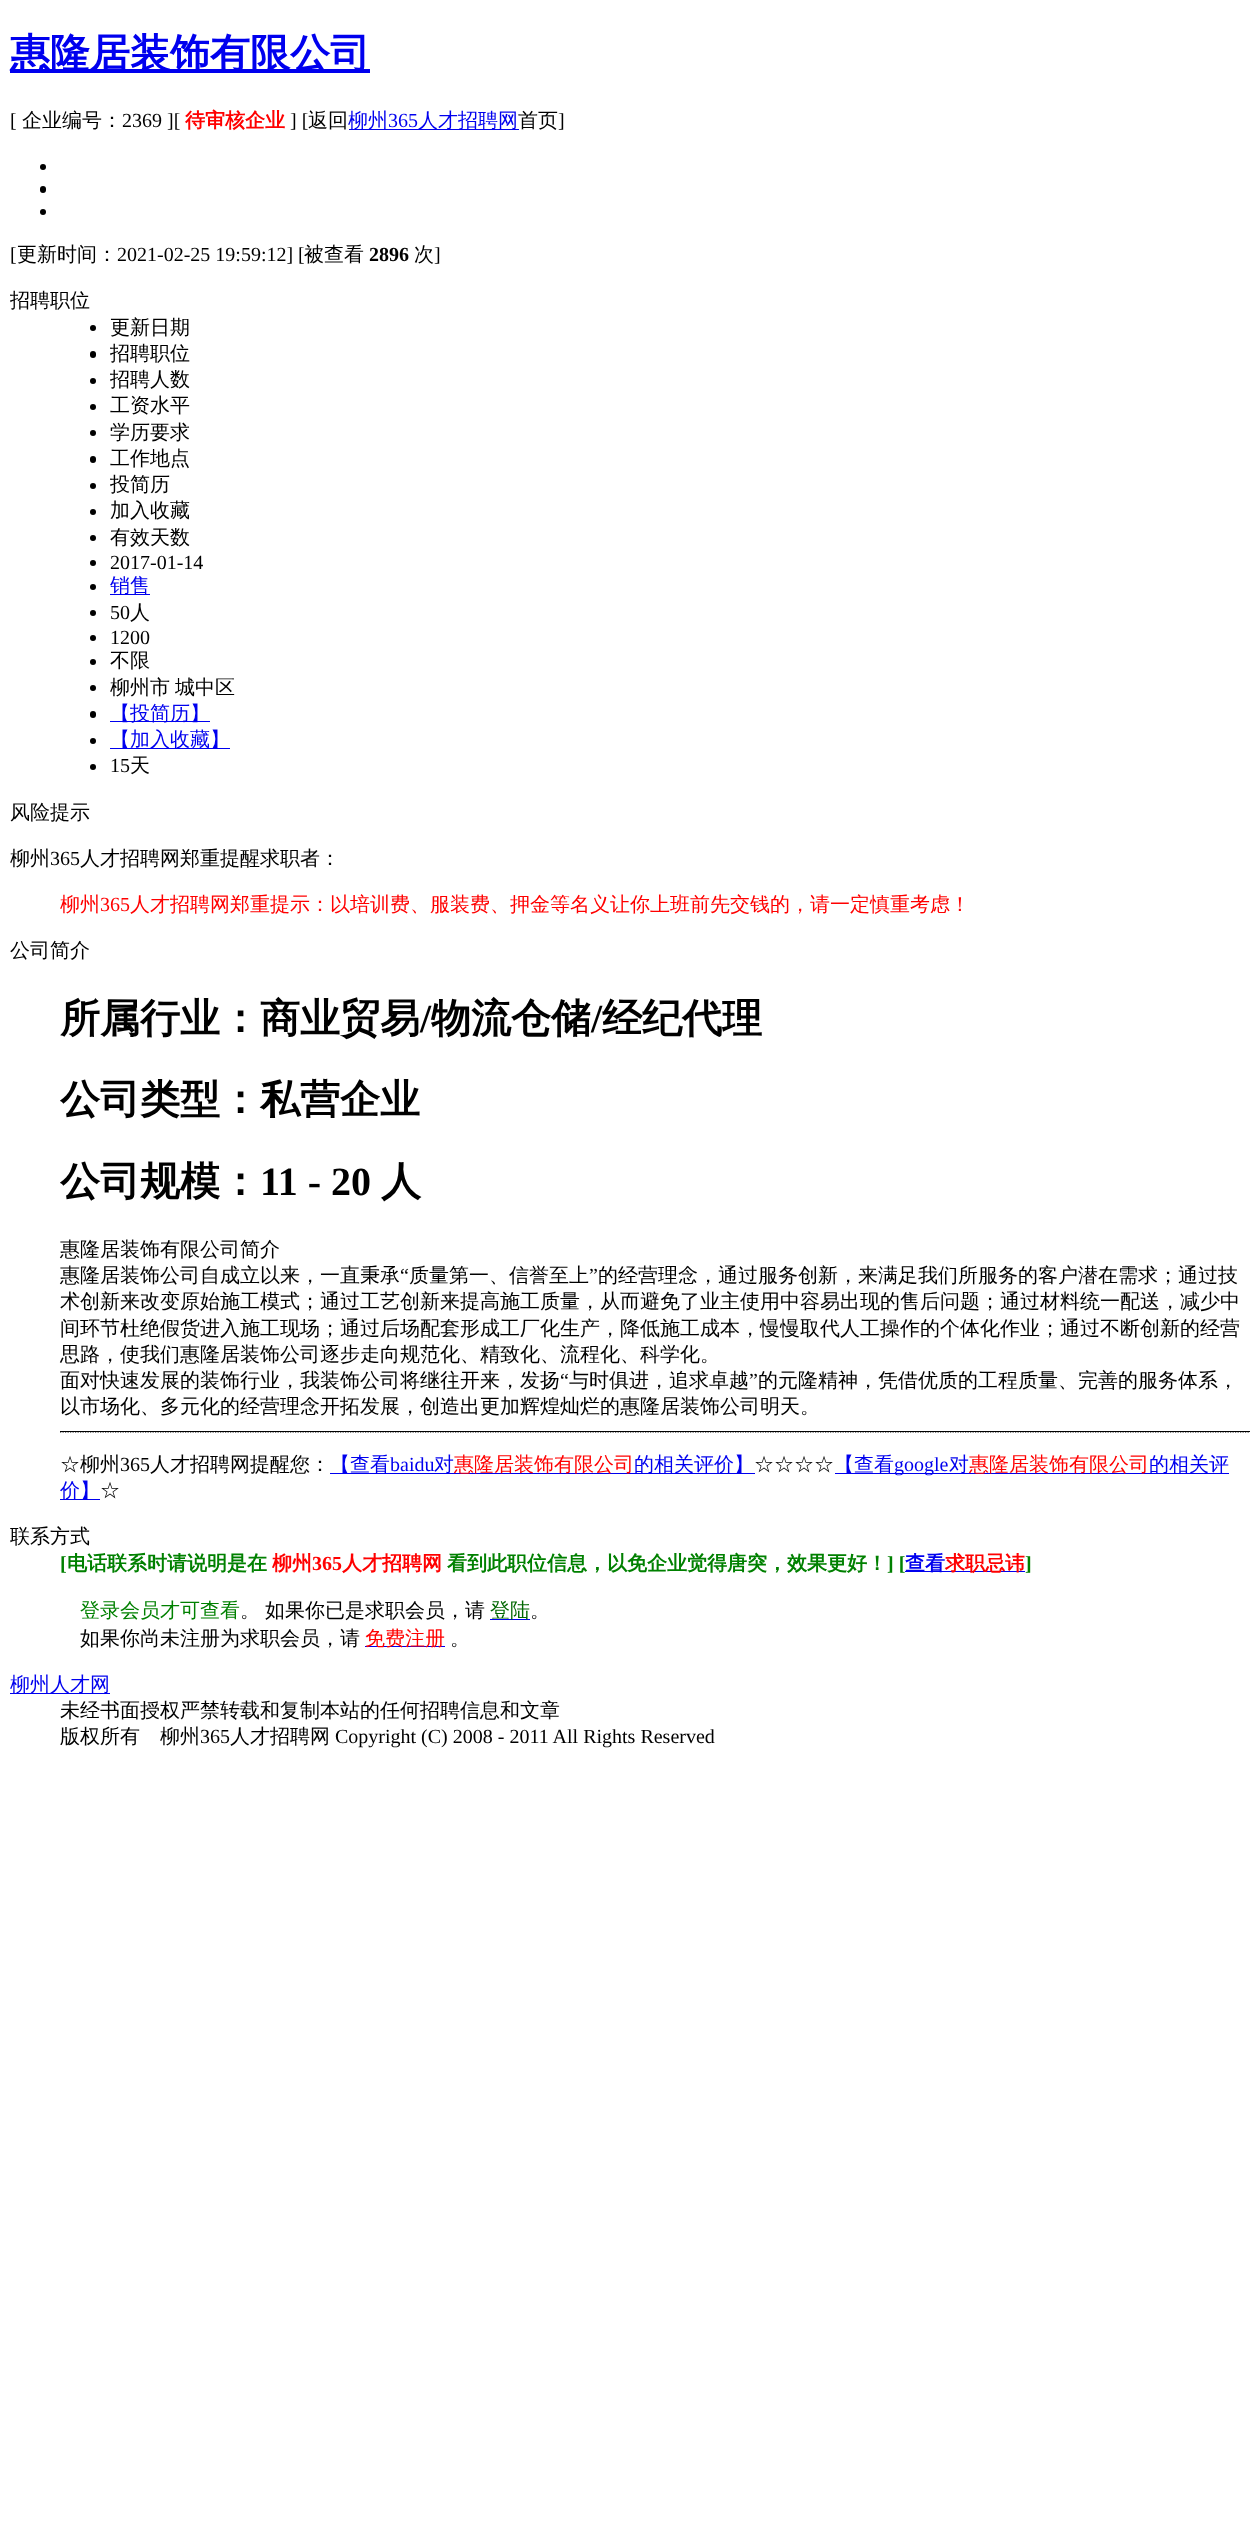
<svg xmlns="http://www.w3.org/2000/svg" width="1259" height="2544">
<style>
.a{font:bold 40px WenQuanYi Zen Hei;fill:#00e}
.b{font:20px Liberation Serif;fill:#000}
.c{font:500 20px WenQuanYi Zen Hei;fill:#000}
.d{font:bold 20px WenQuanYi Zen Hei;fill:#f00}
.e{font:500 20px WenQuanYi Zen Hei;fill:#00e}
.f{font:20px Liberation Serif;fill:#00e}
.g{font:bold 20px Liberation Serif;fill:#000}
.h{font:500 20px WenQuanYi Zen Hei;fill:#f00}
.i{font:20px Liberation Serif;fill:#f00}
.j{font:bold 40px WenQuanYi Zen Hei;fill:#000}
.k{font:bold 40px Liberation Serif;fill:#000}
.l{font:bold 20px Liberation Serif;fill:#008000}
.m{font:bold 20px WenQuanYi Zen Hei;fill:#008000}
.n{font:bold 20px Liberation Serif;fill:#f00}
.o{font:bold 20px WenQuanYi Zen Hei;fill:#00e}
.p{font:500 20px WenQuanYi Zen Hei;fill:#008000}
.q{font:500 20px WenQuanYi Zen Hei;fill:#060}
</style>
<rect width="100%" height="100%" fill="#fff"/>
<path fill="#00e" d="M10 69h360v4H10z"/>
<path fill="#00e" d="M349 129h170v1H349z"/>
<circle fill="#000" cx="43" cy="167" r="3"/>
<rect fill="#000" x="40" y="186" width="6" height="7" rx="3"/>
<circle fill="#000" cx="43" cy="212" r="3"/>
<circle fill="#000" cx="93" cy="328" r="3"/>
<rect fill="#000" x="90" y="351" width="6" height="7" rx="3"/>
<circle fill="#000" cx="93" cy="381" r="3"/>
<circle fill="#000" cx="93" cy="407" r="3"/>
<circle fill="#000" cx="93" cy="433" r="3"/>
<rect fill="#000" x="90" y="456" width="6" height="7" rx="3"/>
<circle fill="#000" cx="93" cy="486" r="3"/>
<circle fill="#000" cx="93" cy="512" r="3"/>
<circle fill="#000" cx="93" cy="538" r="3"/>
<circle fill="#000" cx="93" cy="563" r="3"/>
<circle fill="#000" cx="93" cy="587" r="3"/>
<path fill="#00e" d="M110 594h40v1H110z"/>
<circle fill="#000" cx="93" cy="613" r="3"/>
<circle fill="#000" cx="93" cy="638" r="3"/>
<circle fill="#000" cx="93" cy="662" r="3"/>
<circle fill="#000" cx="93" cy="688" r="3"/>
<rect fill="#000" x="90" y="711" width="6" height="7" rx="3"/>
<path fill="#00e" d="M110 721h100v1H110z"/>
<circle fill="#000" cx="93" cy="741" r="3"/>
<path fill="#00e" d="M110 748h120v1H110z"/>
<circle fill="#000" cx="93" cy="767" r="3"/>
<path fill="#000" d="M60 1431h1190v1H60z"/>
<path fill="none" stroke="#000" stroke-width="1.2" stroke-dasharray="1.25 1.25" d="M60 1432h1190"/>
<path fill="#00e" d="M330 1473h425v1H330z"/>
<path fill="#00e" d="M835 1473h394v1H835z"/>
<path fill="#00e" d="M60 1499h40v1H60z"/>
<path fill="#00e" d="M905 1571h120v1H905z"/>
<path fill="#00e" d="M490 1619h40v1H490z"/>
<path fill="#00e" d="M365 1646h80v1H365z"/>
<path fill="#00e" d="M10 1693h100v1H10z"/>
<text class="a" x="10" y="67">惠隆居装饰有限公司</text>
<text class="b" x="10" y="127">[</text>
<text class="c" x="22" y="127">企业编号：</text>
<text class="b" x="122" y="127">2369 ][</text>
<text class="d" x="185" y="127">待审核企业</text>
<text class="b" x="290" y="127">] [</text>
<text class="c" x="308" y="127">返回</text>
<text class="e" x="348" y="127">柳州</text>
<text class="f" x="388" y="127">365</text>
<text class="e" x="418" y="127">人才招聘网</text>
<text class="c" x="518" y="127">首页</text>
<text class="b" x="558" y="127">]</text>
<text class="b" x="10" y="261">[</text>
<text class="c" x="17" y="261">更新时间：</text>
<text class="b" x="117" y="261">2021-02-25 19:59:12] [</text>
<text class="c" x="304" y="261">被查看</text>
<text class="g" x="369" y="261">2896</text>
<text class="c" x="414" y="261">次</text>
<text class="b" x="434" y="261">]</text>
<text class="c" x="10" y="307">招聘职位</text>
<text class="c" x="110" y="334">更新日期</text>
<text class="c" x="110" y="360">招聘职位</text>
<text class="c" x="110" y="386">招聘人数</text>
<text class="c" x="110" y="412">工资水平</text>
<text class="c" x="110" y="439">学历要求</text>
<text class="c" x="110" y="465">工作地点</text>
<text class="c" x="110" y="491">投简历</text>
<text class="c" x="110" y="517">加入收藏</text>
<text class="c" x="110" y="544">有效天数</text>
<text class="b" x="110" y="569">2017-01-14</text>
<text class="e" x="110" y="592">销售</text>
<text class="b" x="110" y="619">50</text>
<text class="c" x="130" y="619">人</text>
<text class="b" x="110" y="644">1200</text>
<text class="c" x="110" y="667">不限</text>
<text class="c" x="110" y="694" word-spacing="-1">柳州市 城中区</text>
<text class="e" x="110" y="720">【投简历】</text>
<text class="e" x="110" y="746">【加入收藏】</text>
<text class="b" x="110" y="772">15</text>
<text class="c" x="130" y="772">天</text>
<text class="c" x="10" y="819">风险提示</text>
<text class="c" x="10" y="865">柳州</text>
<text class="b" x="50" y="865">365</text>
<text class="c" x="80" y="865">人才招聘网郑重提醒求职者：</text>
<text class="h" x="60" y="911">柳州</text>
<text class="i" x="100" y="911">365</text>
<text class="h" x="130" y="911">人才招聘网郑重提示：以培训费、服装费、押金等名义让你上班前先交钱的，请一定慎重考虑！</text>
<text class="c" x="10" y="957">公司简介</text>
<text class="j" x="60" y="1032">所属行业：商业贸易</text>
<text class="k" x="420" y="1032">/</text>
<text class="j" x="431" y="1032">物流仓储</text>
<text class="k" x="591" y="1032">/</text>
<text class="j" x="602" y="1032">经纪代理</text>
<text class="j" x="60" y="1113">公司类型：私营企业</text>
<text class="j" x="60" y="1195">公司规模：</text>
<text class="k" x="260" y="1195">11 - 20</text>
<text class="j" x="381" y="1195">人</text>
<text class="c" x="60" y="1256">惠隆居装饰有限公司简介</text>
<text class="c" x="60" y="1282">惠隆居装饰公司自成立以来，一直秉承</text>
<text class="b" x="400" y="1282">“</text>
<text class="c" x="409" y="1282">质量第一、信誉至上</text>
<text class="b" x="589" y="1282">”</text>
<text class="c" x="598" y="1282">的经营理念，通过服务创新，来满足我们所服务的客户潜在需求；通过技</text>
<text class="c" x="60" y="1308">术创新来改变原始施工模式；通过工艺创新来提高施工质量，从而避免了业主使用中容易出现的售后问题；通过材料统一配送，减少中</text>
<text class="c" x="60" y="1335">间环节杜绝假货进入施工现场；通过后场配套形成工厂化生产，降低施工成本，慢慢取代人工操作的个体化作业；通过不断创新的经营</text>
<text class="c" x="60" y="1361">思路，使我们惠隆居装饰公司逐步走向规范化、精致化、流程化、科学化。</text>
<text class="c" x="60" y="1387">面对快速发展的装饰行业，我装饰公司将继往开来，发扬</text>
<text class="b" x="560" y="1387">“</text>
<text class="c" x="569" y="1387">与时俱进，追求卓越</text>
<text class="b" x="749" y="1387">”</text>
<text class="c" x="758" y="1387">的元隆精神，凭借优质的工程质量、完善的服务体系，</text>
<text class="c" x="60" y="1413">以市场化、多元化的经营理念开拓发展，创造出更加辉煌灿烂的惠隆居装饰公司明天。</text>
<text class="c" x="60" y="1471">☆柳州</text>
<text class="b" x="120" y="1471">365</text>
<text class="c" x="150" y="1471">人才招聘网提醒您：</text>
<text class="e" x="330" y="1471">【查看</text>
<text class="f" x="390" y="1471">baidu</text>
<text class="e" x="434" y="1471">对</text>
<text class="h" x="454" y="1471">惠隆居装饰有限公司</text>
<text class="e" x="634" y="1471">的相关评价】</text>
<text class="c" x="754" y="1471">☆☆☆☆</text>
<text class="e" x="834" y="1471">【查看</text>
<text class="f" x="894" y="1471">google</text>
<text class="e" x="949" y="1471">对</text>
<text class="h" x="969" y="1471">惠隆居装饰有限公司</text>
<text class="e" x="1149" y="1471">的相关评</text>
<text class="e" x="60" y="1497">价】</text>
<text class="c" x="100" y="1497">☆</text>
<text class="c" x="10" y="1543">联系方式</text>
<text class="l" x="60" y="1570">[</text>
<text class="m" x="67" y="1570">电话联系时请说明是在</text>
<text class="d" x="272" y="1570">柳州</text>
<text class="n" x="312" y="1570">365</text>
<text class="d" x="342" y="1570">人才招聘网</text>
<text class="m" x="447" y="1570">看到此职位信息，以免企业觉得唐突，效果更好！</text>
<text class="l" x="887" y="1570">] [</text>
<text class="o" x="905" y="1570">查看</text>
<text class="d" x="945" y="1570">求职忌讳</text>
<text class="l" x="1025" y="1570">]</text>
<text class="p" x="80" y="1617">登录会员才可查看</text>
<text class="c" x="240" y="1617">。</text>
<text class="c" x="265" y="1617">如果你已是求职会员，请</text>
<text class="q" x="490" y="1617">登陆</text>
<text class="c" x="530" y="1617">。</text>
<text class="c" x="80" y="1645">如果你尚未注册为求职会员，请</text>
<text class="h" x="365" y="1645">免费注册</text>
<text class="c" x="450" y="1645">。</text>
<text class="e" x="10" y="1691">柳州人才网</text>
<text class="c" x="60" y="1717">未经书面授权严禁转载和复制本站的任何招聘信息和文章</text>
<text class="c" x="60" y="1743">版权所有　柳州</text>
<text class="b" x="200" y="1743">365</text>
<text class="c" x="230" y="1743">人才招聘网</text>
<text class="b" x="335" y="1743">Copyright (C) 2008 - 2011 All Rights Reserved</text>
</svg>
